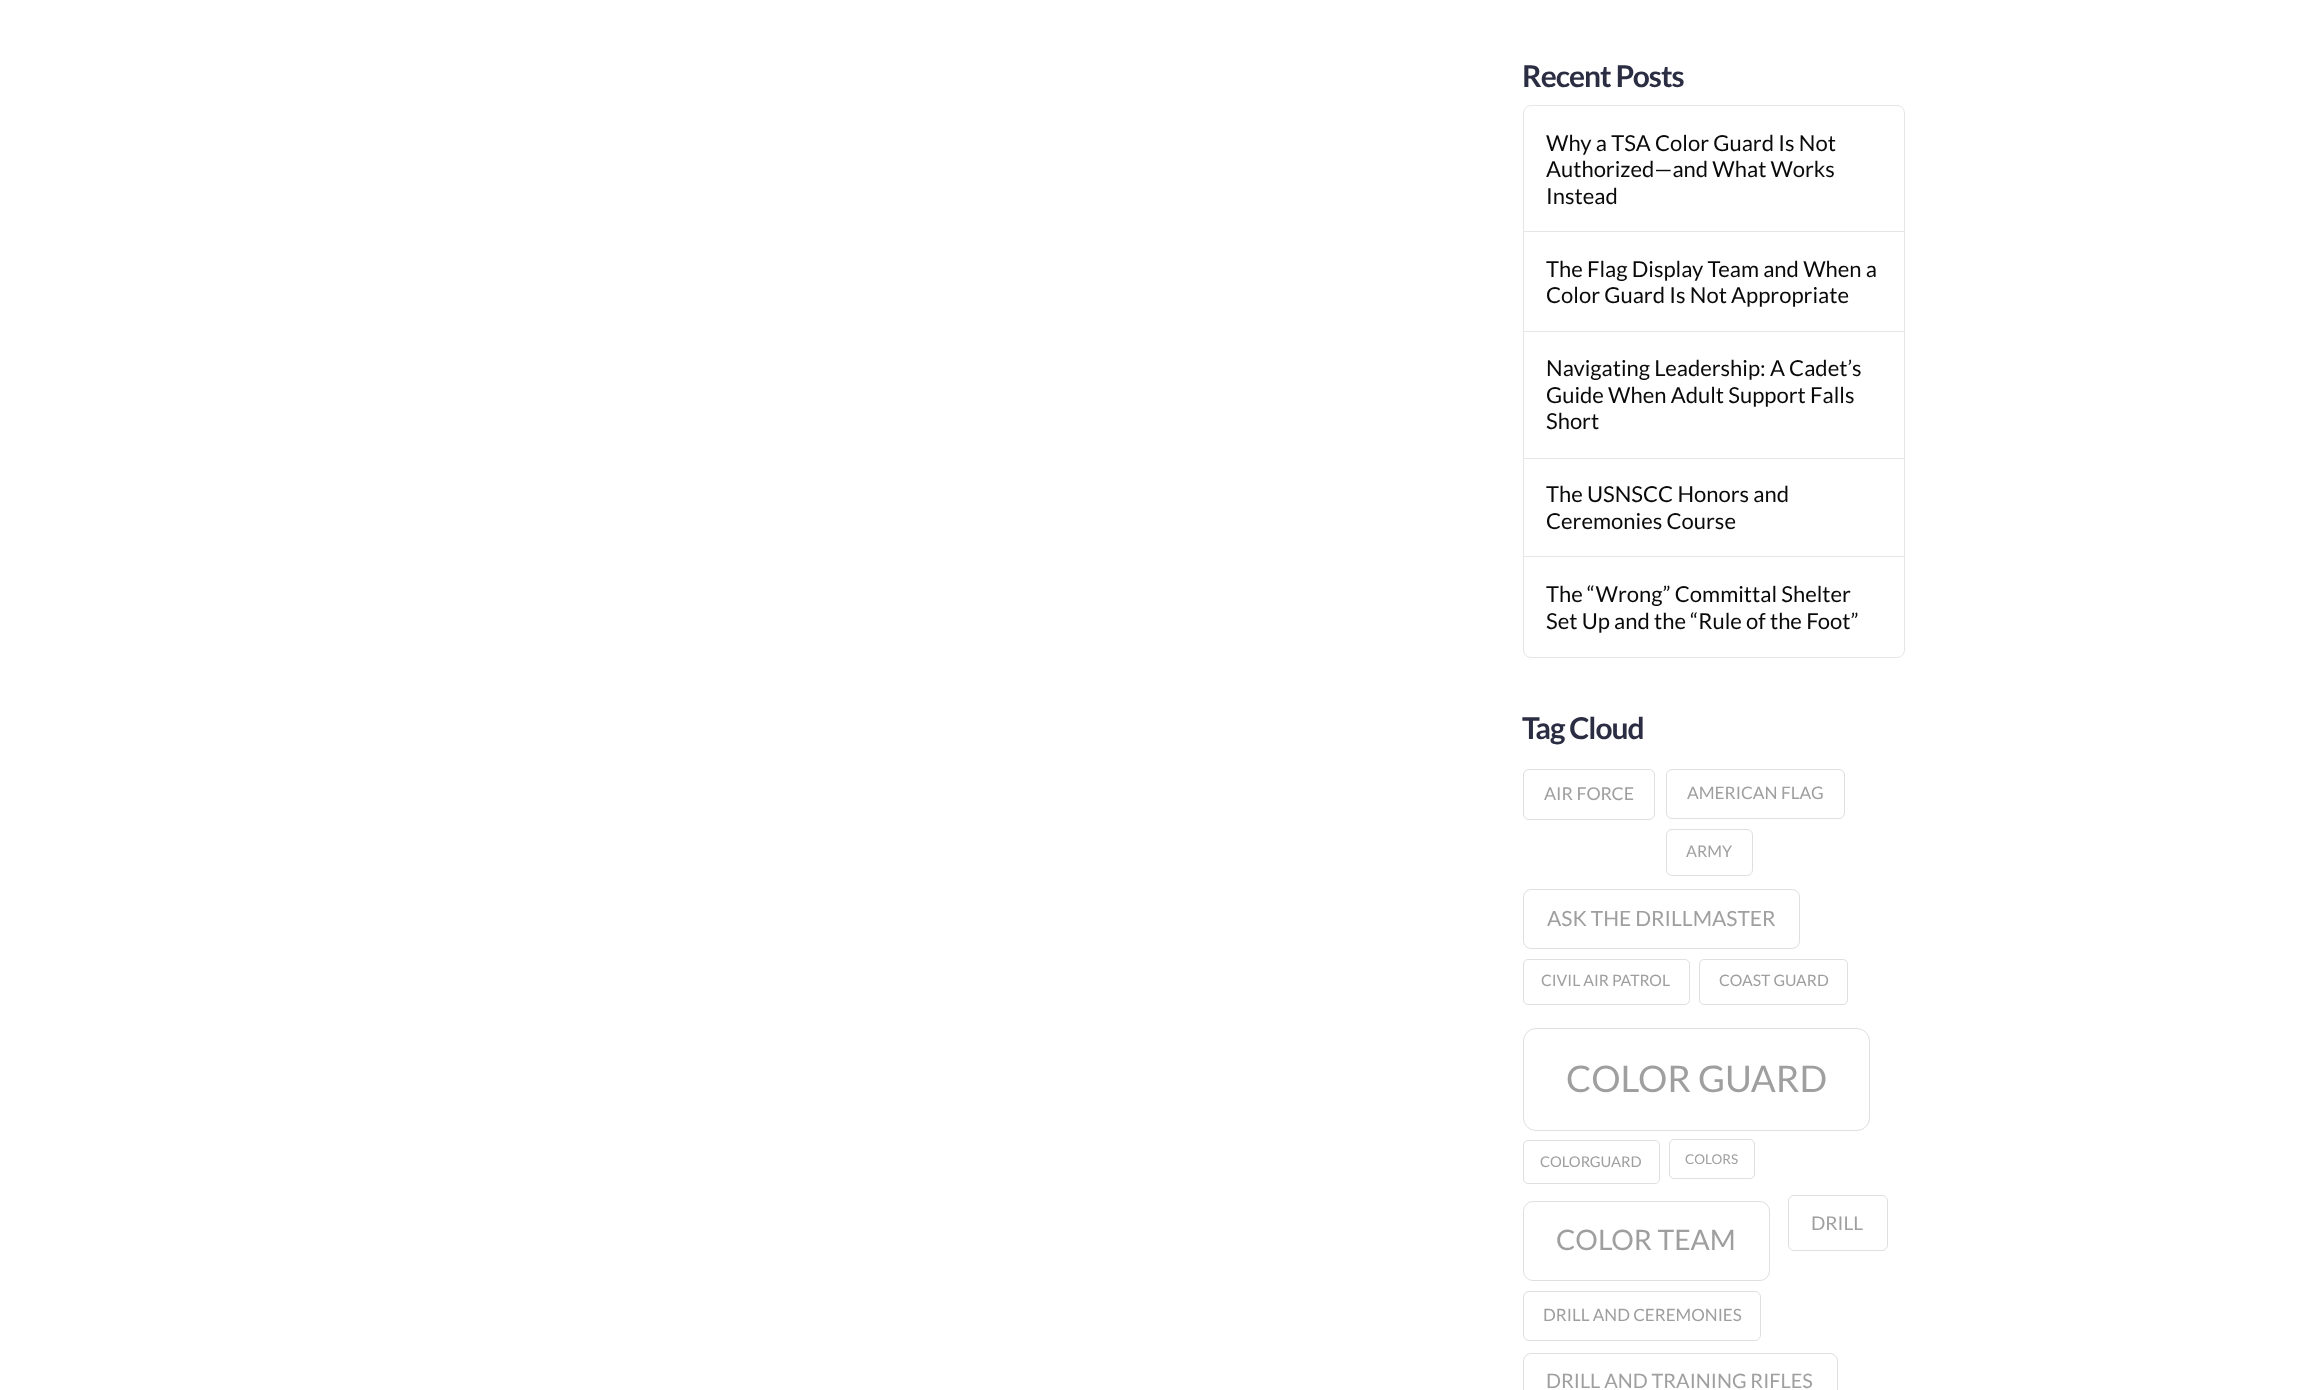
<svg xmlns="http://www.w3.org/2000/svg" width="2309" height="1390">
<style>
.a{font:bold 30px Lato;letter-spacing:-1px;fill:#2b2d42}
.b{font:22px Lato;fill:#0a0a0a}
.c{font:17.75px Lato;fill:#9f9f9f}
.d{font:17.25px Lato;fill:#9f9f9f}
.e{font:16px Lato;fill:#9f9f9f}
.f{font:21px Lato;fill:#9f9f9f}
.g{font:15.75px Lato;fill:#9f9f9f}
.h{font:36.75px Lato;fill:#9f9f9f}
.i{font:14.75px Lato;fill:#9f9f9f}
.j{font:13.5px Lato;fill:#9f9f9f}
.k{font:19px Lato;fill:#9f9f9f}
.l{font:28.25px Lato;fill:#9f9f9f}
.m{font:17px Lato;fill:#9f9f9f}
.n{font:19.9px Lato;fill:#9f9f9f}
</style>
<rect width="100%" height="100%" fill="#fff"/>
<rect fill="none" stroke="#e6e6e6" x="1523.5" y="105.5" width="381" height="552" rx="7.5"/>
<path fill="#e6e6e6" d="M1524 231h380v1H1524z"/>
<path fill="#e6e6e6" d="M1524 331h380v1H1524z"/>
<path fill="#e6e6e6" d="M1524 458h380v1H1524z"/>
<path fill="#e6e6e6" d="M1524 556h380v1H1524z"/>
<rect fill="none" stroke="#dfdfdf" x="1523.5" y="769.5" width="131" height="50" rx="5.5"/>
<rect fill="none" stroke="#dfdfdf" x="1666.5" y="769.5" width="178" height="49" rx="5.5"/>
<rect fill="none" stroke="#dfdfdf" x="1666.5" y="829.5" width="86" height="46" rx="5.5"/>
<rect fill="none" stroke="#dfdfdf" x="1523.5" y="889.5" width="276" height="59" rx="7.5"/>
<rect fill="none" stroke="#dfdfdf" x="1523.5" y="959.5" width="166" height="45" rx="4.5"/>
<rect fill="none" stroke="#dfdfdf" x="1699.5" y="959.5" width="148" height="45" rx="4.5"/>
<rect fill="none" stroke="#dfdfdf" x="1523.5" y="1028.5" width="346" height="102" rx="12.5"/>
<rect fill="none" stroke="#dfdfdf" x="1523.5" y="1140.5" width="136" height="43" rx="4.5"/>
<rect fill="none" stroke="#dfdfdf" x="1669.5" y="1139.5" width="85" height="39" rx="4.5"/>
<rect fill="none" stroke="#dfdfdf" x="1788.5" y="1195.5" width="99" height="55" rx="5.5"/>
<rect fill="none" stroke="#dfdfdf" x="1523.5" y="1201.5" width="246" height="79" rx="9.5"/>
<rect fill="none" stroke="#dfdfdf" x="1523.5" y="1291.5" width="237" height="49" rx="5.5"/>
<rect fill="none" stroke="#dfdfdf" x="1523.5" y="1353.5" width="314" height="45" rx="7.5"/>
<text class="a" x="1522" y="87">Recent Posts</text>
<text class="b" x="1546" y="151">Why a TSA Color Guard Is Not</text>
<text class="b" x="1546" y="177">Authorized—and What Works</text>
<text class="b" x="1546" y="204">Instead</text>
<text class="b" x="1546" y="277">The Flag Display Team and When a</text>
<text class="b" x="1546" y="303">Color Guard Is Not Appropriate</text>
<text class="b" x="1546" y="376">Navigating Leadership: A Cadet’s</text>
<text class="b" x="1546" y="403">Guide When Adult Support Falls</text>
<text class="b" x="1546" y="429">Short</text>
<text class="b" x="1546" y="502">The USNSCC Honors and</text>
<text class="b" x="1546" y="529">Ceremonies Course</text>
<text class="b" x="1546" y="602">The “Wrong” Committal Shelter</text>
<text class="b" x="1546" y="629">Set Up and the “Rule of the Foot”</text>
<text class="a" x="1522" y="739">Tag Cloud</text>
<text class="c" x="1544" y="800">AIR FORCE</text>
<text class="d" x="1687" y="799">AMERICAN FLAG</text>
<text class="e" x="1686" y="857">ARMY</text>
<text class="f" x="1547" y="926">ASK THE DRILLMASTER</text>
<text class="g" x="1541" y="986">CIVIL AIR PATROL</text>
<text class="g" x="1719" y="986">COAST GUARD</text>
<text class="h" x="1566" y="1092">COLOR GUARD</text>
<text class="i" x="1540" y="1167">COLORGUARD</text>
<text class="j" x="1685" y="1164">COLORS</text>
<text class="k" x="1811" y="1230">DRILL</text>
<text class="l" x="1556" y="1250">COLOR TEAM</text>
<text class="m" x="1543" y="1321">DRILL AND CEREMONIES</text>
<text class="n" x="1546" y="1388">DRILL AND TRAINING RIFLES</text>
</svg>
